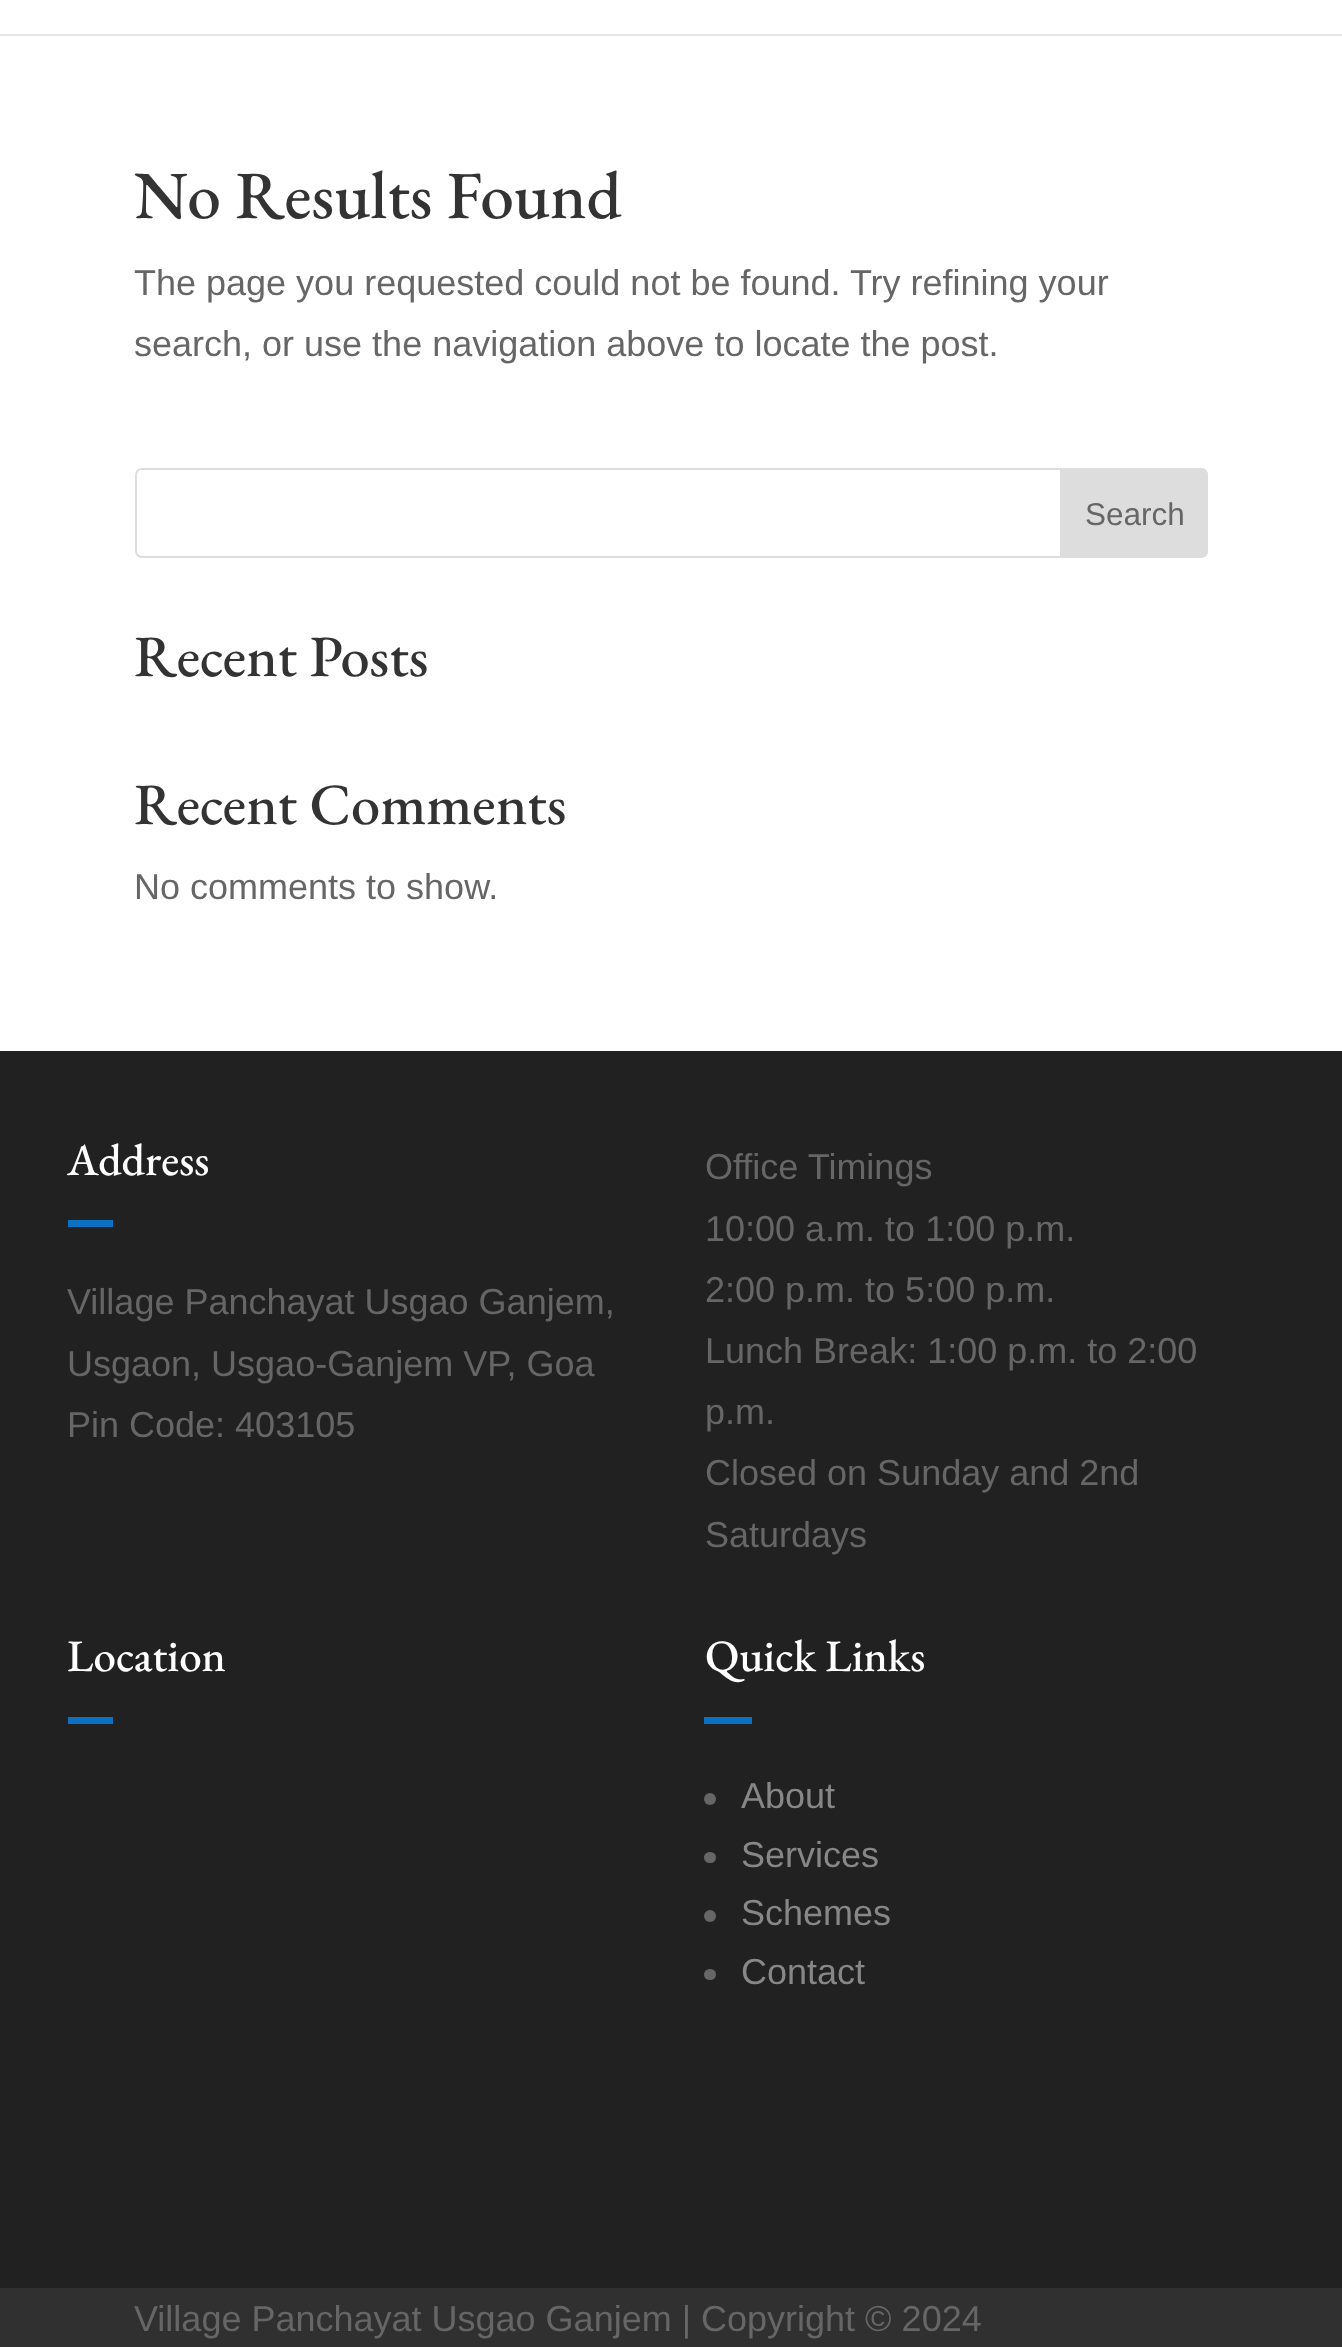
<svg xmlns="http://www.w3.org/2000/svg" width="1342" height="2347">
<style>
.a{font:500 67.5px EB Garamond;fill:#333}
.b{font:36px Liberation Sans;fill:#666}
.c{font:31.5px Liberation Sans;fill:#666}
.d{font:500 58.5px EB Garamond;fill:#333}
.e{font:500 45px EB Garamond;fill:#fff}
.f{font:36px Liberation Sans;fill:#878787}
</style>
<rect width="100%" height="100%" fill="#fff"/>
<path fill="#e6e6e6" d="M0 34h1342v2H0z"/>
<rect fill="none" stroke="#ddd" stroke-width="2" x="136" y="469" width="1071" height="88" rx="6"/>
<path fill="#ddd" stroke="#ddd" stroke-width="2" d="M1061 469h140c3.5 0 6 2.5 6 6v76c0 3.5-2.5 6-6 6h-140z"/>
<path fill="#212121" d="M0 1051h1342v1237H0z"/>
<path fill="#0c71c3" d="M68 1220h45v7H68z"/>
<path fill="#0c71c3" d="M68 1717h45v7H68z"/>
<path fill="#0c71c3" d="M704 1717h48v7H704z"/>
<circle fill="#666" cx="710" cy="1799" r="6"/>
<rect fill="#666" x="704" y="1852" width="12" height="11" rx="5.5"/>
<circle fill="#666" cx="710" cy="1916" r="6"/>
<rect fill="#666" x="704" y="1969" width="12" height="11" rx="5.5"/>
<path fill="#303030" d="M0 2288h1342v59H0z"/>
<text class="a" x="134" y="218">No Results Found</text>
<text class="b" x="134" y="295">The page you requested could not be found. Try refining your</text>
<text class="b" x="134" y="356">search, or use the navigation above to locate the post.</text>
<text class="c" x="1085" y="525">Search</text>
<text class="d" x="134" y="676">Recent Posts</text>
<text class="d" x="134" y="824">Recent Comments</text>
<text class="b" x="134" y="899">No comments to show.</text>
<text class="e" x="67" y="1175">Address</text>
<text class="b" x="67" y="1314">Village Panchayat Usgao Ganjem,</text>
<text class="b" x="67" y="1376">Usgaon, Usgao-Ganjem VP, Goa</text>
<text class="b" x="67" y="1437">Pin Code: 403105</text>
<text class="b" x="705" y="1179">Office Timings</text>
<text class="b" x="705" y="1241">10:00 a.m. to 1:00 p.m.</text>
<text class="b" x="705" y="1302">2:00 p.m. to 5:00 p.m.</text>
<text class="b" x="705" y="1363">Lunch Break: 1:00 p.m. to 2:00</text>
<text class="b" x="705" y="1424">p.m.</text>
<text class="b" x="705" y="1485">Closed on Sunday and 2nd</text>
<text class="b" x="705" y="1547">Saturdays</text>
<text class="e" x="67" y="1671">Location</text>
<text class="e" x="705" y="1671">Quick Links</text>
<text class="f" x="741" y="1808">About</text>
<text class="f" x="741" y="1867">Services</text>
<text class="f" x="741" y="1925">Schemes</text>
<text class="f" x="741" y="1984">Contact</text>
<text class="b" x="134" y="2331">Village Panchayat Usgao Ganjem | Copyright © 2024</text>
</svg>
